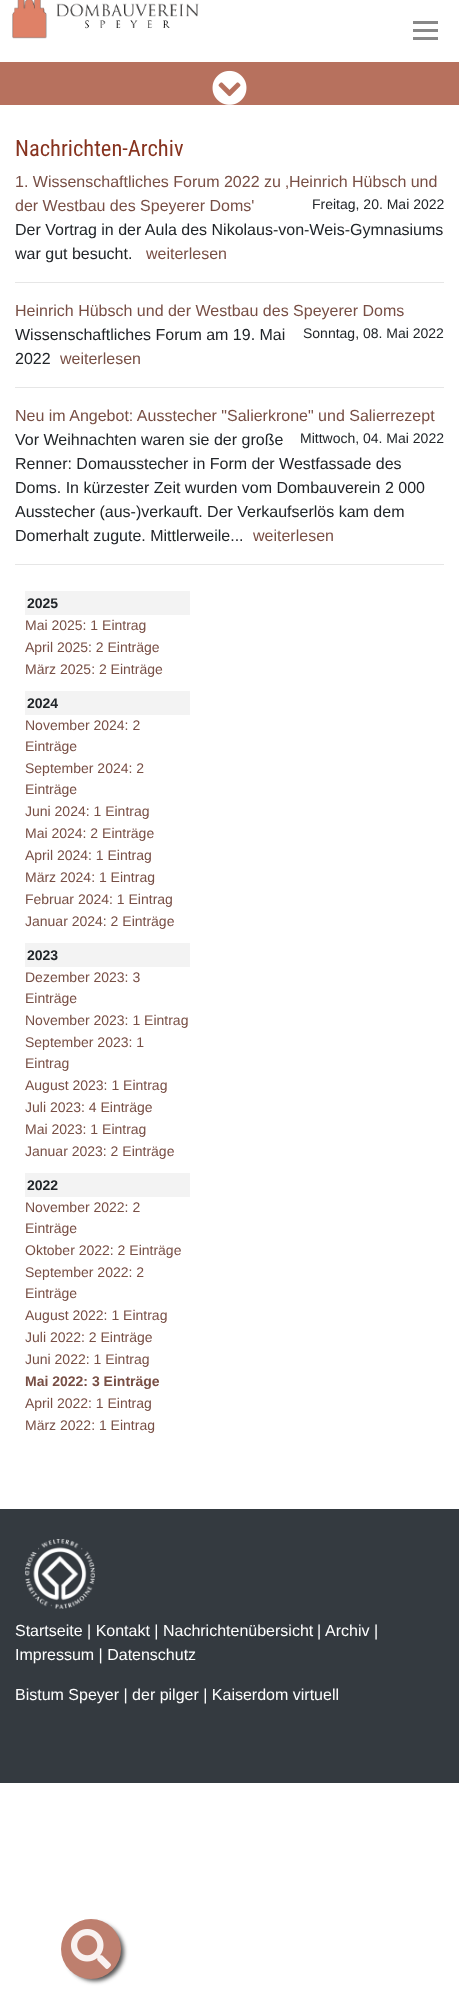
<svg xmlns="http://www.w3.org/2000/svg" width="459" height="2006">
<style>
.a{font:22.5px Roboto Condensed;fill:#87331f}
.b{font:16px Liberation Sans;fill:#784f45}
.c{font:14px Liberation Sans;fill:#212529}
.d{font:16px Liberation Sans;fill:#212529}
.e{font:bold 14px Liberation Sans;fill:#212529}
.f{font:14px Liberation Sans;fill:#784f45}
.g{font:bold 14px Liberation Sans;fill:#784f45}
.h{font:16px Liberation Sans;fill:#fff}
</style>
<rect width="100%" height="100%" fill="#fff"/>
<image href="1.png" x="12" y="0" width="187" height="39"/>
<path fill="#888" d="M413 21h25v3H413z"/>
<path fill="#888" d="M413 29h25v3H413z"/>
<path fill="#888" d="M413 37h25v3H413z"/>
<path fill="#b7715e" d="M0 62h459v43H0z"/>
<image href="2.png" x="212" y="70" width="35" height="35"/>
<path fill="#e6e6e6" d="M15 282h429v1H15z"/>
<path fill="#e6e6e6" d="M15 387h429v1H15z"/>
<path fill="#e6e6e6" d="M15 564h429v1H15z"/>
<path fill="#f3f3f3" d="M25 591h165v24H25z"/>
<path fill="#f3f3f3" d="M25 691h165v24H25z"/>
<path fill="#f3f3f3" d="M25 943h165v24H25z"/>
<path fill="#f3f3f3" d="M25 1173h165v24H25z"/>
<path fill="#343a40" d="M0 1509h459v274H0z"/>
<image href="3.png" x="25" y="1539" width="70" height="70"/>
<rect fill="#1a1a1abf" filter="blur(2px)" x="66" y="1923" width="58" height="58" rx="29"/>
<circle fill="#be7f6e" cx="91" cy="1949" r="30"/>
<image href="4.png" x="71" y="1929" width="40" height="40"/>
<text class="a" x="15" y="156">Nachrichten-Archiv</text>
<text class="b" x="15" y="187">1. Wissenschaftliches Forum 2022 zu ‚Heinrich Hübsch und</text>
<text class="b" x="15" y="211">der Westbau des Speyerer Doms'</text>
<text class="c" x="312" y="209">Freitag, 20. Mai 2022</text>
<text class="d" x="15" y="235">Der Vortrag in der Aula des Nikolaus-von-Weis-Gymnasiums</text>
<text class="d" x="15" y="259">war gut besucht.</text>
<text class="b" x="146" y="259">weiterlesen</text>
<text class="b" x="15" y="316">Heinrich Hübsch und der Westbau des Speyerer Doms</text>
<text class="c" x="303" y="338">Sonntag, 08. Mai 2022</text>
<text class="d" x="15" y="340">Wissenschaftliches Forum am 19. Mai</text>
<text class="d" x="15" y="364">2022</text>
<text class="b" x="60" y="364">weiterlesen</text>
<text class="b" x="15" y="421">Neu im Angebot: Ausstecher "Salierkrone" und Salierrezept</text>
<text class="c" x="300" y="443">Mittwoch, 04. Mai 2022</text>
<text class="d" x="15" y="445">Vor Weihnachten waren sie der große</text>
<text class="d" x="15" y="469">Renner: Domausstecher in Form der Westfassade des</text>
<text class="d" x="15" y="493">Doms. In kürzester Zeit wurden vom Dombauverein 2 000</text>
<text class="d" x="15" y="517">Ausstecher (aus-)verkauft. Der Verkaufserlös kam dem</text>
<text class="d" x="15" y="541">Domerhalt zugute. Mittlerweile...</text>
<text class="b" x="253" y="541">weiterlesen</text>
<text class="e" x="27" y="608">2025</text>
<text class="f" x="25" y="630">Mai 2025: 1 Eintrag</text>
<text class="f" x="25" y="652">April 2025: 2 Einträge</text>
<text class="f" x="25" y="674">März 2025: 2 Einträge</text>
<text class="e" x="27" y="708">2024</text>
<text class="f" x="25" y="730">November 2024: 2</text>
<text class="f" x="25" y="751">Einträge</text>
<text class="f" x="25" y="773">September 2024: 2</text>
<text class="f" x="25" y="794">Einträge</text>
<text class="f" x="25" y="816">Juni 2024: 1 Eintrag</text>
<text class="f" x="25" y="838">Mai 2024: 2 Einträge</text>
<text class="f" x="25" y="860">April 2024: 1 Eintrag</text>
<text class="f" x="25" y="882">März 2024: 1 Eintrag</text>
<text class="f" x="25" y="904">Februar 2024: 1 Eintrag</text>
<text class="f" x="25" y="926">Januar 2024: 2 Einträge</text>
<text class="e" x="27" y="960">2023</text>
<text class="f" x="25" y="982">Dezember 2023: 3</text>
<text class="f" x="25" y="1003">Einträge</text>
<text class="f" x="25" y="1025">November 2023: 1 Eintrag</text>
<text class="f" x="25" y="1047">September 2023: 1</text>
<text class="f" x="25" y="1068">Eintrag</text>
<text class="f" x="25" y="1090">August 2023: 1 Eintrag</text>
<text class="f" x="25" y="1112">Juli 2023: 4 Einträge</text>
<text class="f" x="25" y="1134">Mai 2023: 1 Eintrag</text>
<text class="f" x="25" y="1156">Januar 2023: 2 Einträge</text>
<text class="e" x="27" y="1190">2022</text>
<text class="f" x="25" y="1212">November 2022: 2</text>
<text class="f" x="25" y="1233">Einträge</text>
<text class="f" x="25" y="1255">Oktober 2022: 2 Einträge</text>
<text class="f" x="25" y="1277">September 2022: 2</text>
<text class="f" x="25" y="1298">Einträge</text>
<text class="f" x="25" y="1320">August 2022: 1 Eintrag</text>
<text class="f" x="25" y="1342">Juli 2022: 2 Einträge</text>
<text class="f" x="25" y="1364">Juni 2022: 1 Eintrag</text>
<text class="g" x="25" y="1386">Mai 2022: 3 Einträge</text>
<text class="f" x="25" y="1408">April 2022: 1 Eintrag</text>
<text class="f" x="25" y="1430">März 2022: 1 Eintrag</text>
<text class="h" x="15" y="1636">Startseite | Kontakt | Nachrichtenübersicht</text>
<text class="h" x="317" y="1636">|</text>
<text class="h" x="325" y="1636">Archiv |</text>
<text class="h" x="15" y="1660">Impressum | Datenschutz</text>
<text class="h" x="15" y="1700">Bistum Speyer | der pilger | Kaiserdom virtuell</text>
</svg>
